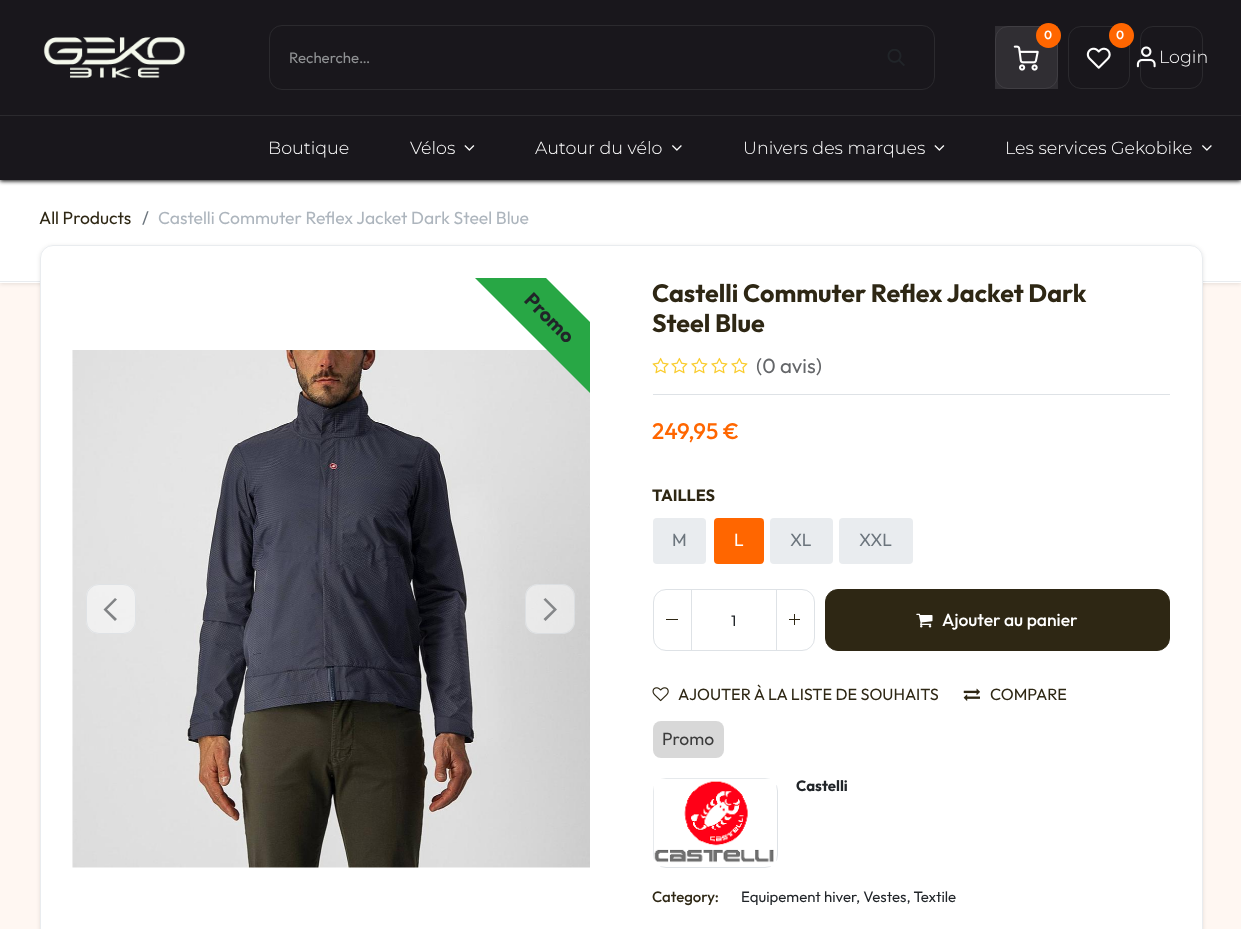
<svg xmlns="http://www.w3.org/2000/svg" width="1241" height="929">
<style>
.a{font:15px Outfit;fill:#909294}
.b{font:600 12px Montserrat;fill:#fff}
.c{font:300 17.5px Montserrat;fill:#fff}
.d{font:17.5px Outfit;fill:#2e2714}
.e{font:17.5px Outfit;fill:#6c757d}
.f{font:17.5px Outfit;fill:#adb5bd}
.g{font:bold 20px Outfit;fill:#212529}
.h{font:bold 25px Outfit;fill:#2e2714}
.i{font:20.5px Outfit;fill:#646669}
.j{font:500 22.5px Outfit;fill:#f60}
.k{font:bold 16.25px Outfit;fill:#2e2714}
.l{font:17.5px Outfit;fill:#fff}
.m{font:15px Outfit;fill:#212529}
.n{font:500 17.5px Outfit;fill:#fff}
.o{font:16.25px Outfit;fill:#2e2714}
.p{font:17.5px Outfit;fill:#3c3c3c}
.q{font:bold 15px Outfit;fill:#212529}
.r{font:500 15px Outfit;fill:#2e2714}
</style>
<defs>
<clipPath id="clip1"><path d="M73 278h517v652H73z"/></clipPath>
</defs>
<rect width="100%" height="100%" fill="#fff7f2"/>
<path fill="#0000001a" filter="blur(2px)" d="M0 181h1241v103H0z"/>
<path fill="#fff" d="M0 180h1241v103H0z"/>
<path fill="#000" filter="blur(2px)" d="M0 1h1241v180H0z"/>
<path fill="#19171c" d="M0 0h1241v180H0z"/>
<image href="1.png" x="43" y="37" width="143" height="41"/>
<rect fill="none" stroke="#2b2a2e" x="269.5" y="25.5" width="665" height="64" rx="12.5"/>
<image href="2.png" x="887" y="49" width="18" height="17"/>
<path fill="#302e33" d="M995 26h63v63H995z"/>
<rect fill="none" stroke="#403e43" x="995.5" y="26.5" width="62" height="62" rx="12.5"/>
<image href="3.png" x="1013" y="45" width="26" height="26"/>
<circle fill="#f60" cx="1048.5" cy="35.5" r="12.5"/>
<rect fill="none" stroke="#2b2a2e" x="1068.5" y="26.5" width="61" height="62" rx="12.5"/>
<image href="4.png" x="1086" y="47" width="25" height="22"/>
<circle fill="#f60" cx="1121.5" cy="35.5" r="12.5"/>
<rect fill="none" stroke="#2b2a2e" x="1140.5" y="26.5" width="62" height="62" rx="12.5"/>
<image href="5.png" x="1136" y="46" width="20" height="22"/>
<path fill="#2b2a2e" d="M0 115h1241v1H0z"/>
<image href="6.png" x="464" y="145" width="11" height="6"/>
<image href="7.png" x="672" y="145" width="10" height="6"/>
<image href="6.png" x="934" y="145" width="11" height="6"/>
<image href="7.png" x="1202" y="145" width="10" height="6"/>
<path fill="#e9ecef" d="M0 281h1241v1H0z"/>
<rect fill="#0000001a" filter="blur(2px)" x="40" y="246" width="1163" height="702" rx="13"/>
<path fill="#fff" d="M53 245h1137c7 0 13 6 13 13v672h-1163v-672c0-7 6-13 13-13z"/>
<rect fill="none" stroke="#e9ecef" x="40.5" y="245.5" width="1162" height="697" rx="12.5"/>
<image href="8.png" x="72" y="350" width="518" height="518"/>
<g clip-path="url(#clip1)">
<path fill="#28a745" d="M458 190l220 220l-36 35l-220-220z"/>
</g>
<rect fill="#ffffff80" x="86" y="584" width="50" height="50" rx="13"/>
<rect fill="none" stroke="#ced4da80" x="86.5" y="584.5" width="49" height="49" rx="12.5"/>
<path fill="#818385" d="M103.5 609.5l11.5-11.5l2 1.5l-10 10l10 9.5l-2 2z"/>
<rect fill="#ffffff80" x="525" y="584" width="50" height="50" rx="13"/>
<rect fill="none" stroke="#ced4da80" x="525.5" y="584.5" width="49" height="49" rx="12.5"/>
<path fill="#858789" d="M557 609.5l-11.5 11.5l-2-2l10-9.5l-10-10l2-1.5z"/>
<path fill="#dee2e6" d="M653 394h517v1H653z"/>
<image href="9.png" x="652" y="357" width="17" height="17"/>
<image href="10.png" x="671" y="357" width="17" height="17"/>
<image href="10.png" x="691" y="357" width="17" height="17"/>
<image href="10.png" x="711" y="357" width="17" height="17"/>
<image href="10.png" x="731" y="357" width="17" height="17"/>
<rect fill="#e9ecef" x="653" y="518" width="53" height="46" rx="4"/>
<rect fill="#f60" x="714" y="518" width="50" height="46" rx="4"/>
<rect fill="#e9ecef" x="770" y="518" width="63" height="46" rx="4"/>
<rect fill="#e9ecef" x="839" y="518" width="74" height="46" rx="4"/>
<rect fill="none" stroke="#dee2e6" x="653.5" y="589.5" width="161" height="61" rx="12.5"/>
<path fill="#2e2714" d="M666 619h12v1H666z"/>
<path fill="#dee2e6" d="M776 590h1v60H776z"/>
<path fill="#dee2e6" d="M691 590h1v60H691z"/>
<path fill="#2e2714" d="M789 619h11v1H789z"/>
<path fill="#2e2714" d="M794 614h1v11H794z"/>
<rect fill="#2e2714" stroke="#2e2714" x="825.5" y="589.5" width="344" height="61" rx="12.5"/>
<image href="11.png" x="916" y="613" width="17" height="15"/>
<image href="12.png" x="652" y="687" width="17" height="15"/>
<image href="13.png" x="963" y="688" width="17" height="13"/>
<rect fill="none" stroke="#dee2e6" x="653.5" y="778.5" width="124" height="89" rx="12.5"/>
<image href="14.png" x="653" y="778" width="124" height="89"/>
<text class="a" x="289" y="63">Recherche…</text>
<text class="b" x="1044" y="39">0</text>
<text class="b" x="1116" y="39">0</text>
<text class="c" x="1159" y="63">Login</text>
<text class="c" x="268" y="154">Boutique</text>
<text class="c" x="410" y="154">Vélos</text>
<text class="c" x="535" y="154">Autour du vélo</text>
<text class="c" x="743" y="154">Univers des marques</text>
<text class="c" x="1005" y="154">Les services Gekobike</text>
<text class="d" x="39" y="224">All Products</text>
<text class="e" x="142" y="224">/</text>
<text class="f" x="158" y="224">Castelli Commuter Reflex Jacket Dark Steel Blue</text>
<text class="g" x="523" y="301" transform="rotate(45 523 301)">Promo</text>
<text class="h" x="652" y="302">Castelli Commuter Reflex Jacket Dark</text>
<text class="h" x="652" y="332">Steel Blue</text>
<text class="i" x="756" y="373">(0 avis)</text>
<text class="j" x="652" y="439">249,95 €</text>
<text class="k" x="652" y="501">TAILLES</text>
<text class="e" x="672" y="546">M</text>
<text class="l" x="734" y="546">L</text>
<text class="e" x="790" y="546">XL</text>
<text class="e" x="859" y="546">XXL</text>
<text class="m" x="731" y="626">1</text>
<text class="n" x="942" y="626">Ajouter au panier</text>
<text class="o" x="678" y="700">AJOUTER À LA LISTE DE SOUHAITS</text>
<text class="o" x="990" y="700">COMPARE</text>
<text class="p" x="662" y="745">Promo</text>
<rect fill="#3c3c3c33" x="653" y="721" width="71" height="37" rx="8"/>
<text class="q" x="796" y="791">Castelli</text>
<text class="r" x="652" y="902">Category:</text>
<text class="m" x="741" y="902">Equipement hiver, Vestes, Textile</text>
</svg>
